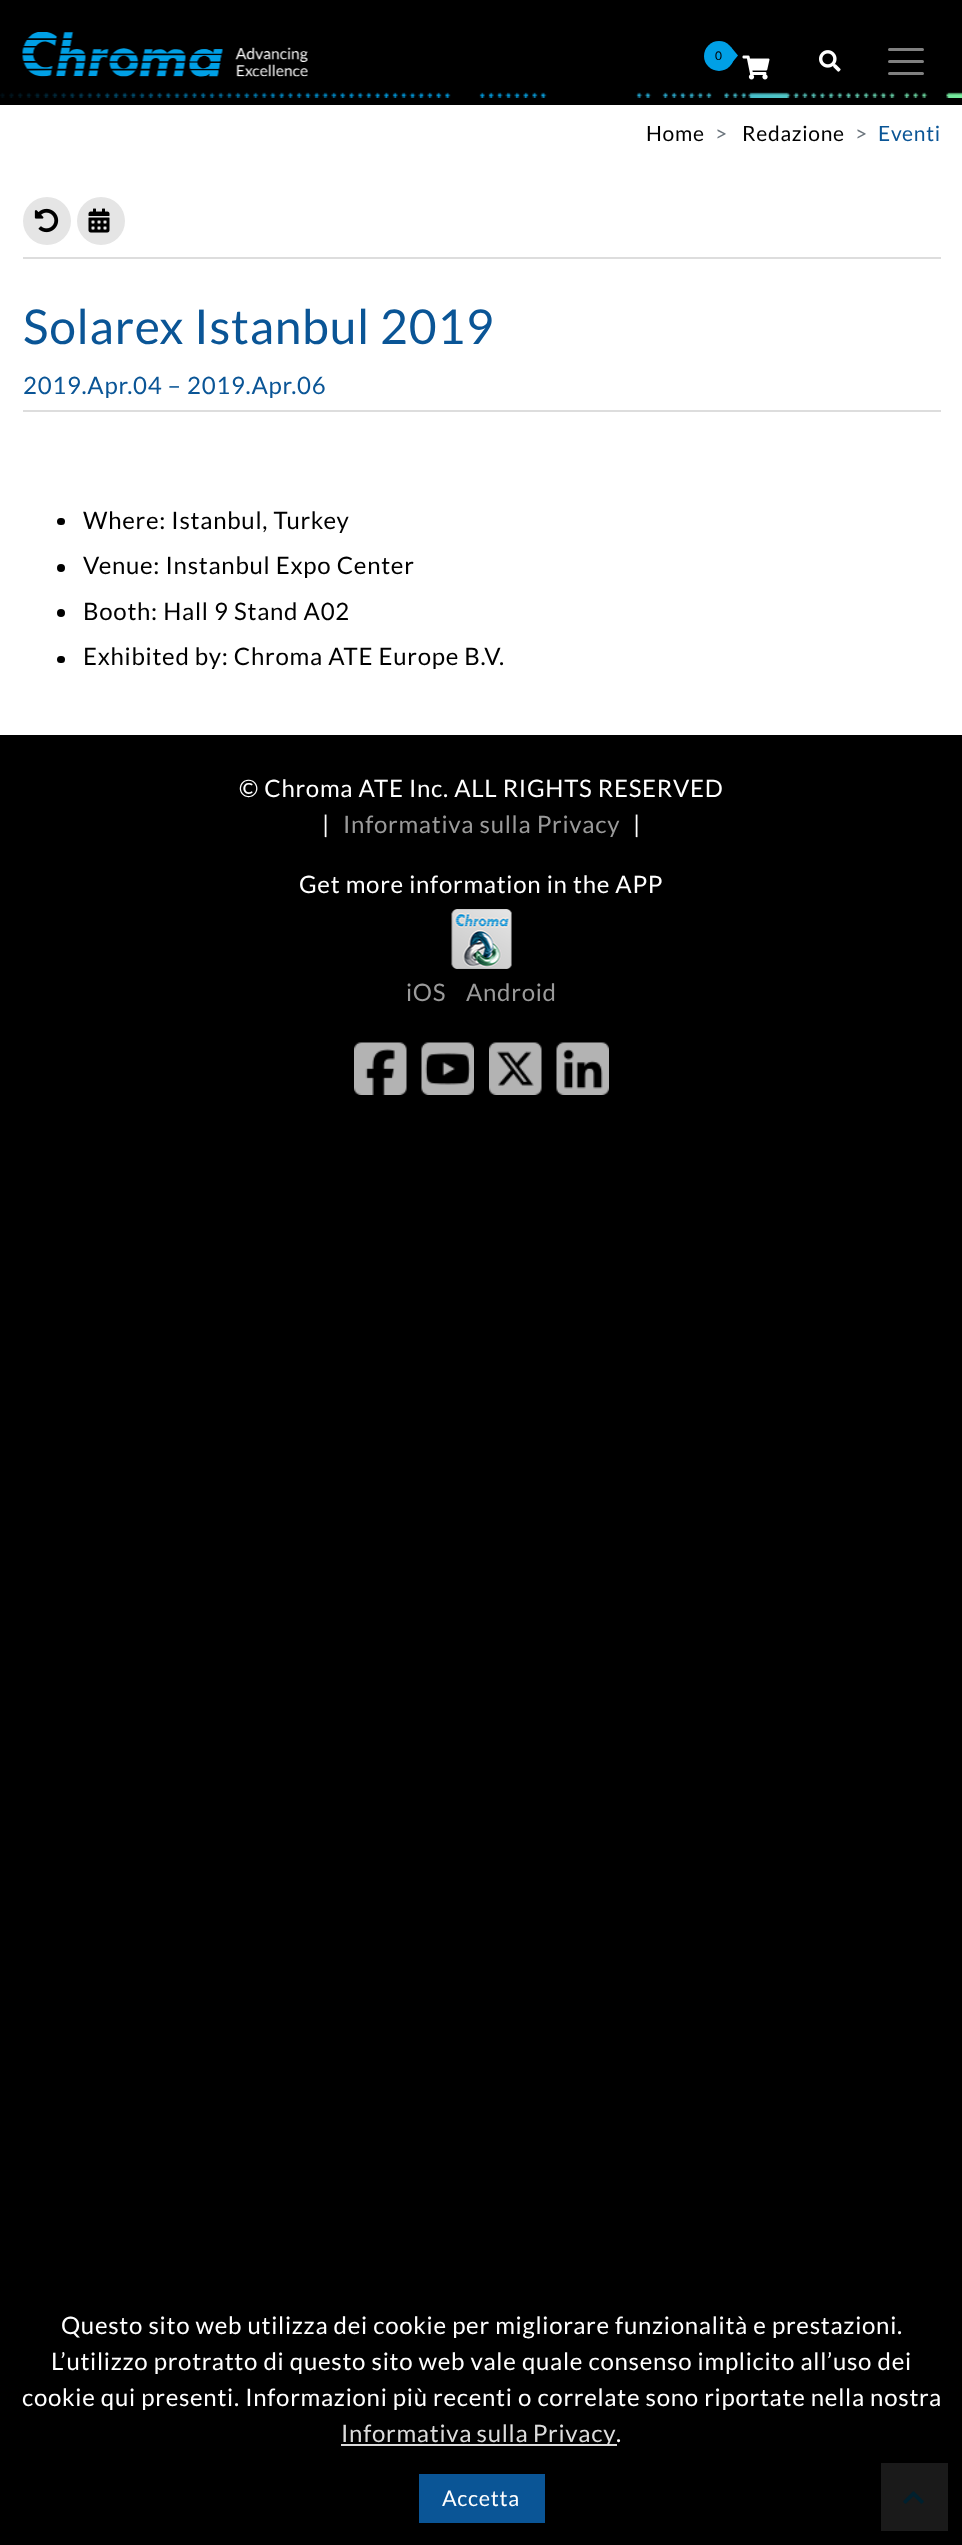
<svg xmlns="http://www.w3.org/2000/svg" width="962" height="2545">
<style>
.a{font:12px Lato;letter-spacing:0.72px;fill:#000}
.b{font:21px Lato;letter-spacing:0.72px;fill:#000}
.c{font:21px Lato;letter-spacing:0.72px;fill:#6c757d}
.d{font:21px Lato;letter-spacing:0.72px;fill:#0a5596}
.e{font:48px Lato;letter-spacing:0.72px;fill:#0a5596}
.f{font:24px Lato;letter-spacing:0.72px;fill:#0a5596}
.g{font:24px Lato;letter-spacing:0.72px;fill:#000}
.h{font:24px Lato;letter-spacing:0.72px;fill:#fff}
.i{font:24px Lato;letter-spacing:0.72px;fill:#9a9a9a}
.j{font:24px Lato;letter-spacing:0.72px;fill:#dcdcdc}
.k{font:21.5px Lato;letter-spacing:0.72px;fill:#fff}
</style>
<rect width="100%" height="100%" fill="#000"/>
<image href="1.png" x="22" y="32" width="286" height="45"/>
<circle fill="#00a0e6" cx="719" cy="56" r="15"/>
<path fill="#00a0e6" d="M730.5 64.5v-18l7.5 9z"/>
<image href="2.png" x="742" y="55" width="28" height="25"/>
<image href="3.png" x="819" y="50" width="22" height="22"/>
<path fill="none" stroke="#808080" stroke-width="3" stroke-linecap="round" d="M889.5 49.5h33m-33 12h33m-33 12h33"/>
<image href="4.png" x="0" y="92" width="962" height="6"/>
<path fill="#fff" d="M0 105h962v630H0z"/>
<path fill="#ddd" d="M23 257h918v2H23z"/>
<circle fill="#e5e5e5" cx="47" cy="221" r="24"/>
<image href="5.png" x="34" y="208" width="25" height="25"/>
<circle fill="#e5e5e5" cx="101" cy="221" r="24"/>
<image href="6.png" x="88" y="208" width="22" height="25"/>
<path fill="#ddd" d="M23 410h918v2H23z"/>
<rect fill="#000" x="57" y="518" width="8" height="7" rx="3.5"/>
<circle fill="#000" cx="61" cy="568" r="4"/>
<circle fill="#000" cx="61" cy="613" r="4"/>
<rect fill="#000" x="57" y="656" width="8" height="7" rx="3.5"/>
<image href="7.png" x="451" y="909" width="61" height="60"/>
<image href="8.png" x="354" y="1042" width="53" height="53"/>
<image href="9.png" x="421" y="1042" width="53" height="53"/>
<image href="10.png" x="489" y="1042" width="53" height="53"/>
<image href="11.png" x="556" y="1042" width="53" height="53"/>
<path fill="#dcdcdc" d="M341 2444h276v2H341z"/>
<path fill="#0a5596" d="M419 2474h126v49H419z"/>
<path fill="#33333380" d="M881 2463h67v68H881z"/>
<image href="12.png" x="903" y="2491" width="21" height="13"/>
<text class="a" x="715" y="60">0</text>
<text class="b" x="646" y="141">Home</text>
<text class="c" x="715" y="141">&gt;</text>
<text class="b" x="742" y="141">Redazione</text>
<text class="c" x="855" y="141">&gt;</text>
<text class="d" x="878" y="141">Eventi</text>
<text class="e" x="23" y="344">Solarex Istanbul 2019</text>
<text class="f" x="23" y="394">2019.Apr.04 – 2019.Apr.06</text>
<text class="g" x="83" y="529">Where: Istanbul, Turkey</text>
<text class="g" x="83" y="574">Venue: Instanbul Expo Center</text>
<text class="g" x="83" y="620">Booth: Hall 9 Stand A02</text>
<text class="g" x="83" y="665">Exhibited by: Chroma ATE Europe B.V.</text>
<text class="h" x="239" y="797">© Chroma ATE Inc. ALL RIGHTS RESERVED</text>
<text class="h" x="322" y="833">|</text>
<text class="i" x="343" y="833">Informativa sulla Privacy</text>
<text class="h" x="633" y="833">|</text>
<text class="h" x="299" y="893">Get more information in the APP</text>
<text class="i" x="406" y="1001">iOS</text>
<text class="i" x="466" y="1001">Android</text>
<text class="h" x="61" y="2334">Questo sito web utilizza dei cookie per migliorare funzionalità e prestazioni.</text>
<text class="h" x="51" y="2370">L’utilizzo protratto di questo sito web vale quale consenso implicito all’uso dei</text>
<text class="h" x="22" y="2406">cookie qui presenti. Informazioni più recenti o correlate sono riportate nella nostra</text>
<text class="j" x="341" y="2442" word-spacing="-1">Informativa sulla Privacy</text>
<text class="h" x="616" y="2442">.</text>
<text class="k" x="442" y="2506">Accetta</text>
</svg>
